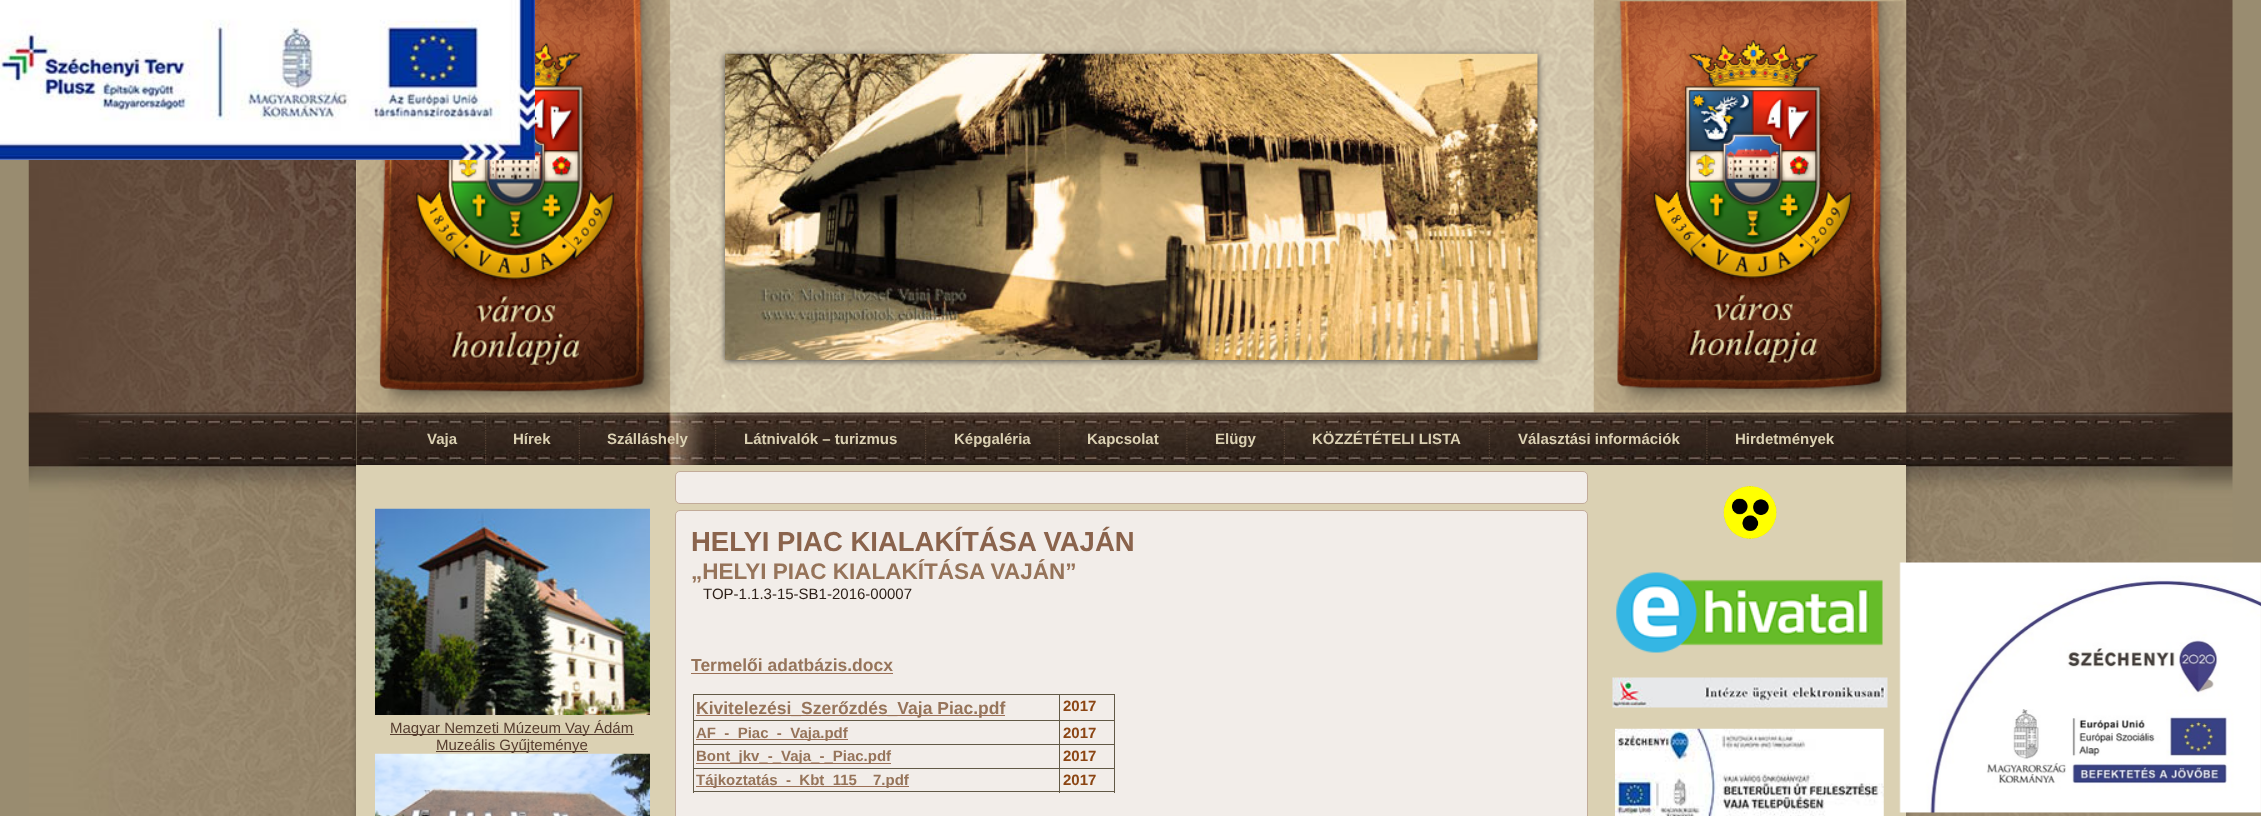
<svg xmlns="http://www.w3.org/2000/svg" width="2261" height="816">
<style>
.a{font:bold 15px Liberation Sans;fill:#dbd1b3}
.b{font:15px Liberation Sans;fill:#563d2f}
.c{font:bold 27.5px Liberation Sans;fill:#8a634c}
.d{font:bold 22.5px Liberation Sans;fill:#96745a}
.e{font:15px Liberation Sans;fill:#2e2119}
.f{font:bold 17.5px Liberation Sans;fill:#96745a}
.g{font:bold 15px Liberation Sans;fill:#8b4513}
.h{font:bold 15px Liberation Sans;fill:#96745a}
</style>
<rect width="100%" height="100%" fill="#998c70"/>
<image href="1.png" x="28" y="0" width="2205" height="816"/>
<path fill="#00000026" filter="blur(2px)" d="M354 -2h1555v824H354z"/>
<path fill="#dbd1b3" d="M356 160h1550v656H356z"/>
<image href="2.png" x="356" y="0" width="1551" height="413"/>
<path fill="#4a4a4a" filter="blur(3px)" d="M725 55h813v306H725z"/>
<image href="3.png" x="725" y="53" width="813" height="307"/>
<image href="4.png" x="356" y="412" width="1551" height="53"/>
<image href="5.png" x="0" y="0" width="535" height="160"/>
<image href="6.png" x="1899" y="562" width="362" height="251"/>
<image href="7.png" x="485" y="412" width="2" height="52"/>
<image href="8.png" x="578" y="412" width="2" height="52"/>
<image href="9.png" x="715" y="412" width="2" height="52"/>
<image href="10.png" x="925" y="412" width="2" height="52"/>
<image href="11.png" x="1058" y="412" width="2" height="52"/>
<image href="12.png" x="1186" y="412" width="2" height="52"/>
<image href="13.png" x="1283" y="412" width="2" height="52"/>
<image href="14.png" x="1488" y="412" width="2" height="52"/>
<image href="15.png" x="1706" y="412" width="2" height="52"/>
<image href="16.png" x="375" y="508" width="275" height="207"/>
<path fill="#563d2f" d="M390 734h244v1H390z"/>
<path fill="#563d2f" d="M436 751h152v1H436z"/>
<rect fill="#f2ede9" stroke="#c2ab99" x="675.5" y="471.5" width="912" height="32" rx="4.5"/>
<rect fill="#f2ede9" stroke="#c2ab99" x="675.5" y="510.5" width="912" height="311" rx="4.5"/>
<path fill="#9b6f55" d="M691 673h202v1H691z"/>
<path fill="#625946" d="M1059 694h56v1H1059z"/>
<path fill="#625946" d="M1059 720h56v1H1059z"/>
<path fill="#625946" d="M1059 744h56v1H1059z"/>
<path fill="#625946" d="M1059 768h56v1H1059z"/>
<path fill="#625946" d="M1114 768h1v25H1114z"/>
<path fill="#625946" d="M1059 791h56v1H1059z"/>
<path fill="#625946" d="M1059 768h1v25H1059z"/>
<path fill="#625946" d="M693 768h367v1H693z"/>
<path fill="#625946" d="M1059 744h1v25H1059z"/>
<path fill="#625946" d="M693 744h367v1H693z"/>
<path fill="#625946" d="M1059 720h1v25H1059z"/>
<path fill="#625946" d="M693 720h367v1H693z"/>
<path fill="#625946" d="M1059 694h1v27H1059z"/>
<path fill="#625946" d="M693 694h367v1H693z"/>
<path fill="#625946" d="M693 791h367v1H693z"/>
<path fill="#625946" d="M693 768h1v25H693z"/>
<path fill="#625946" d="M693 744h1v25H693z"/>
<path fill="#625946" d="M693 720h1v25H693z"/>
<path fill="#625946" d="M693 694h1v27H693z"/>
<path fill="#9b6f55" d="M696 715h309v1H696z"/>
<path fill="#625946" d="M1114 744h1v25H1114z"/>
<path fill="#625946" d="M1114 720h1v25H1114z"/>
<path fill="#625946" d="M1114 694h1v27H1114z"/>
<path fill="#9b6f55" d="M696 739h152v1H696z"/>
<path fill="#9b6f55" d="M696 763h195v1H696z"/>
<path fill="#9b6f55" d="M696 786h213v1H696z"/>
<image href="18.png" x="1723" y="486" width="54" height="53"/>
<image href="19.png" x="1616" y="572" width="267" height="81"/>
<image href="20.png" x="1612" y="677" width="276" height="31"/>
<image href="21.png" x="1615" y="728" width="269" height="88"/>
<text class="a" x="427" y="444">Vaja</text>
<text class="a" x="513" y="444">Hírek</text>
<text class="a" x="607" y="444">Szálláshely</text>
<text class="a" x="744" y="444">Látnivalók – turizmus</text>
<text class="a" x="954" y="444">Képgaléria</text>
<text class="a" x="1087" y="444">Kapcsolat</text>
<text class="a" x="1215" y="444">Elügy</text>
<text class="a" x="1312" y="444">KÖZZÉTÉTELI LISTA</text>
<text class="a" x="1518" y="444">Választási információk</text>
<text class="a" x="1735" y="444">Hirdetmények</text>
<text class="b" x="390" y="733">Magyar Nemzeti Múzeum Vay Ádám</text>
<text class="b" x="436" y="750">Muzeális Gyűjteménye</text>
<image href="17.png" x="375" y="753" width="275" height="63"/>
<text class="c" x="691" y="551">HELYI PIAC KIALAKÍTÁSA VAJÁN</text>
<text class="d" x="691" y="579">„HELYI PIAC KIALAKÍTÁSA VAJÁN”</text>
<text class="e" x="703" y="599">TOP-1.1.3-15-SB1-2016-00007</text>
<text class="f" x="691" y="671">Termelői adatbázis.docx</text>
<text class="f" x="696" y="714">Kivitelezési_Szerőzdés_Vaja Piac.pdf</text>
<text class="g" x="1063" y="711">2017</text>
<text class="h" x="696" y="738">AF_-_Piac_-_Vaja.pdf</text>
<text class="g" x="1063" y="738">2017</text>
<text class="h" x="696" y="761">Bont_jkv_-_Vaja_-_Piac.pdf</text>
<text class="g" x="1063" y="761">2017</text>
<text class="h" x="696" y="785">Tájkoztatás_-_Kbt_115</text>
<text class="h" x="873" y="785">7.pdf</text>
<text class="g" x="1063" y="785">2017</text>
</svg>
